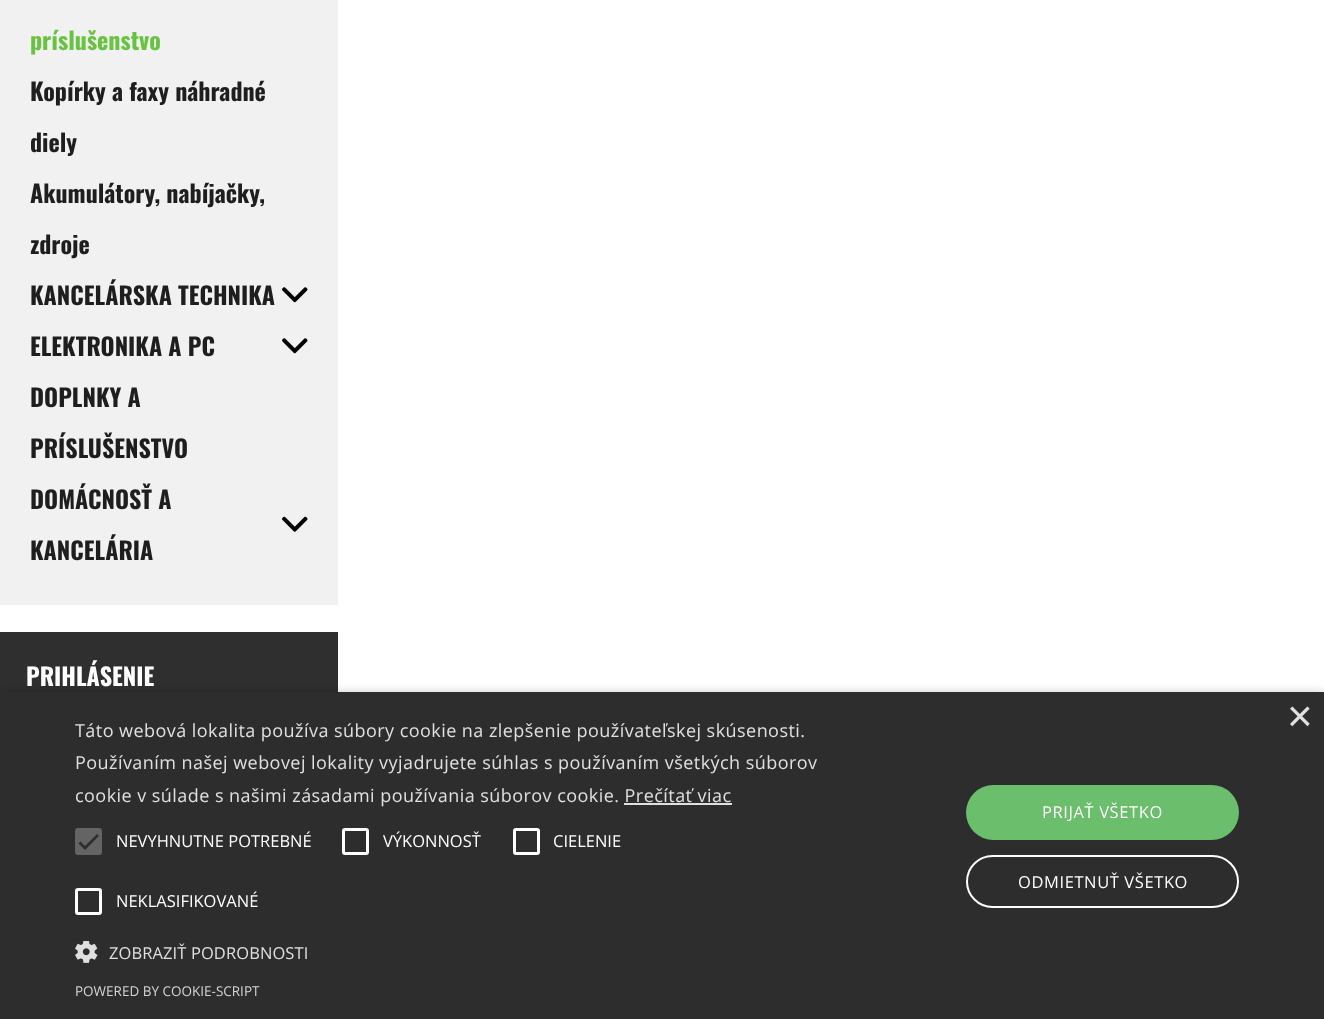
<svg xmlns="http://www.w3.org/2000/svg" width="1324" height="1019">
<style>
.a{font:bold 24px Oswald;fill:#68c440}
.b{font:bold 24px Oswald;fill:#1e1e1e}
.c{font:bold 24px Oswald;fill:#fff}
.d{font:44px Liberation Sans;fill:#e0e0e0}
.e{font:18px Open Sans;letter-spacing:0.45px;fill:#e0e0e0}
.f{font:16.5px Open Sans;fill:#fff}
.g{font:16.5px Open Sans;letter-spacing:0.1px;fill:#e0e0e0}
.h{font:16.5px Open Sans;letter-spacing:0.6px;fill:#fff}
.i{font:13.5px Open Sans;fill:#d5d5d5}
</style>
<rect width="100%" height="100%" fill="#fff"/>
<path fill="#f1f1f1" d="M0 0h338v605H0z"/>
<image href="1.png" x="282" y="287" width="26" height="16"/>
<image href="1.png" x="282" y="338" width="26" height="16"/>
<image href="2.png" x="282" y="516" width="26" height="16"/>
<path fill="#2f2f2f" d="M0 632h338v60H0z"/>
<path fill="#00000059" filter="blur(6px)" d="M2 695h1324v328H2z"/>
<path fill="#2d2d2d" d="M0 692h1324v327H0z"/>
<path fill="#e0e0e0" d="M624 803h108v2H624z"/>
<rect fill="#646464" x="75" y="828" width="27" height="27" rx="3"/>
<path fill="none" stroke="#2d2d2d" stroke-width="2.7" d="M79.5 842.5l5.5 5.5l13-13"/>
<rect fill="none" stroke="#fff" stroke-width="3" x="343.5" y="829.5" width="24" height="24" rx="1.5"/>
<rect fill="none" stroke="#fff" stroke-width="3" x="514.5" y="829.5" width="24" height="24" rx="1.5"/>
<rect fill="none" stroke="#fff" stroke-width="3" x="76.5" y="889.5" width="24" height="24" rx="1.5"/>
<image href="3.png" x="75" y="941" width="23" height="22"/>
<rect fill="#6bbe6b" x="966" y="785" width="273" height="55" rx="27.5"/>
<rect fill="none" stroke="#fff" stroke-width="2" x="967" y="856" width="271" height="51" rx="25.5"/>
<text class="a" x="30" y="50">príslušenstvo</text>
<text class="b" x="30" y="101">Kopírky a faxy náhradné</text>
<text class="b" x="30" y="152">diely</text>
<text class="b" x="30" y="203">Akumulátory, nabíjačky,</text>
<text class="b" x="30" y="254">zdroje</text>
<text class="b" x="30" y="305">KANCELÁRSKA TECHNIKA</text>
<text class="b" x="30" y="356">ELEKTRONIKA A PC</text>
<text class="b" x="30" y="407">DOPLNKY A</text>
<text class="b" x="30" y="458">PRÍSLUŠENSTVO</text>
<text class="b" x="30" y="509">DOMÁCNOSŤ A</text>
<text class="b" x="30" y="560">KANCELÁRIA</text>
<text class="c" x="26" y="686">PRIHLÁSENIE</text>
<text class="d" x="1287" y="731">×</text>
<text class="e" x="75" y="737">Táto webová lokalita používa súbory cookie na zlepšenie používateľskej skúsenosti.</text>
<text class="e" x="75" y="769">Používaním našej webovej lokality vyjadrujete súhlas s používaním všetkých súborov</text>
<text class="e" x="75" y="802">cookie v súlade s našimi zásadami používania súborov cookie. Prečítať viac</text>
<text class="f" x="116" y="847">NEVYHNUTNE POTREBNÉ</text>
<text class="f" x="383" y="847">VÝKONNOSŤ</text>
<text class="f" x="553" y="847">CIELENIE</text>
<text class="f" x="116" y="907">NEKLASIFIKOVANÉ</text>
<text class="g" x="109" y="959">ZOBRAZIŤ PODROBNOSTI</text>
<text class="h" x="1042" y="818">PRIJAŤ VŠETKO</text>
<text class="h" x="1018" y="888">ODMIETNUŤ VŠETKO</text>
<text class="i" x="75" y="996">POWERED BY COOKIE-SCRIPT</text>
</svg>
